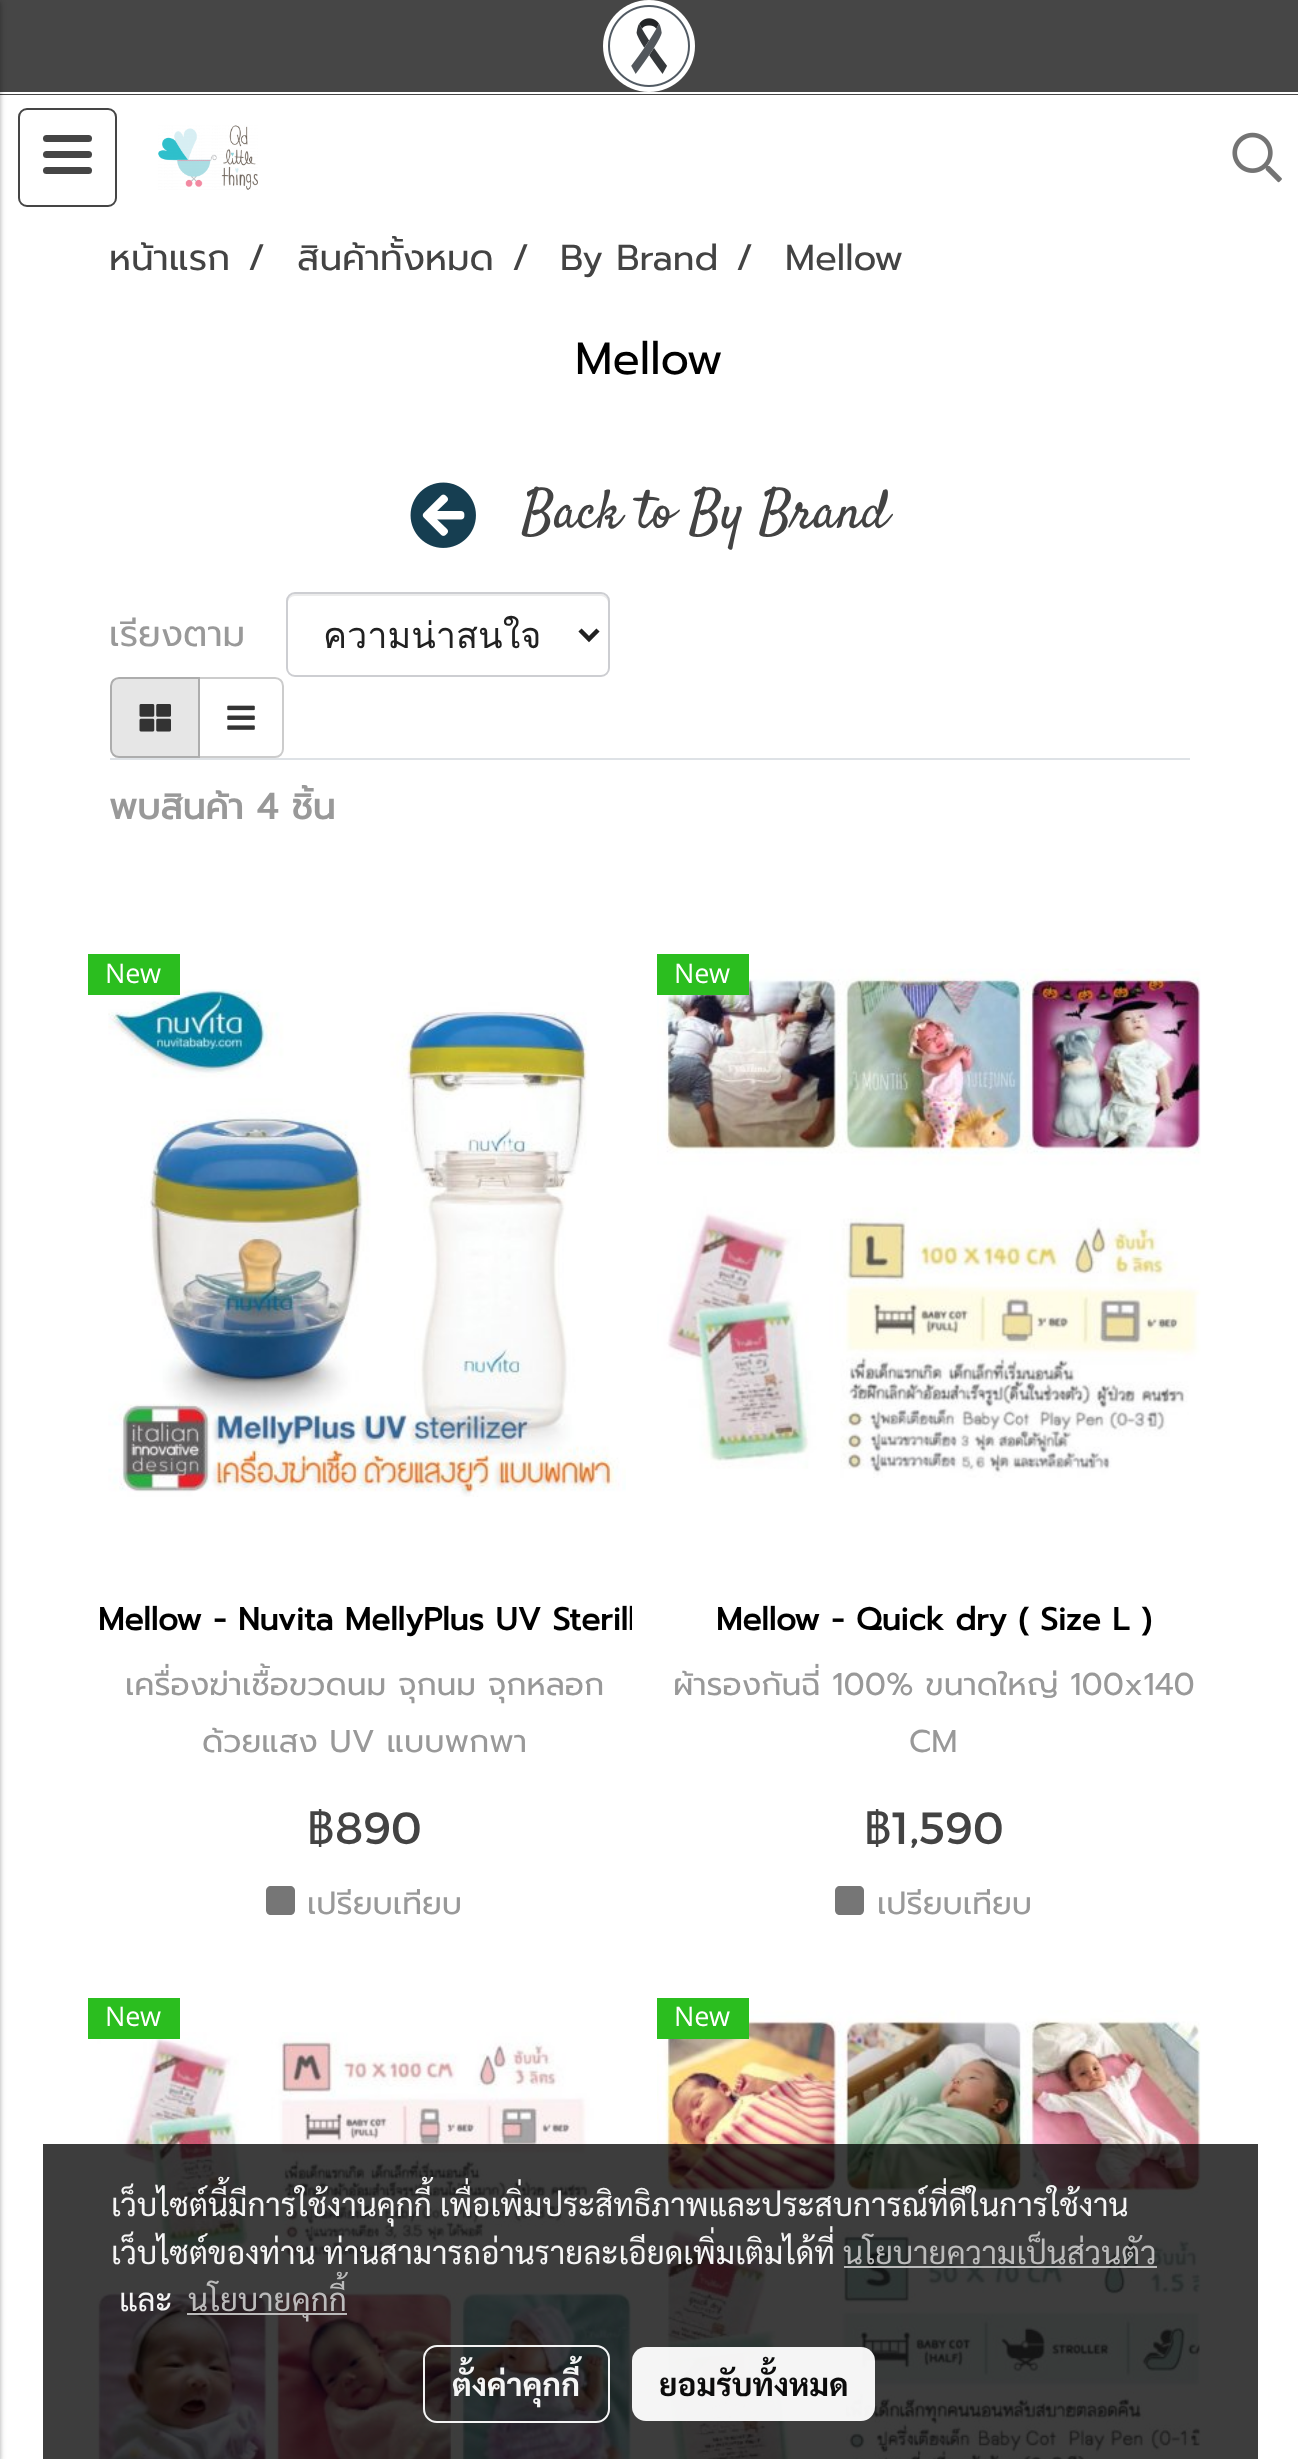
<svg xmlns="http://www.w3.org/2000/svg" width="1298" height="2459">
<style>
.a{font:36px Prompt;fill:#434343}
.b{font:45px Prompt;fill:#000}
.c{font:54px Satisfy;fill:#434343}
.d{font:36px Prompt;fill:#999}
.e{font:36px Loma;fill:#212121}
.f{font:bold 36px Prompt;fill:#999}
.g{font:27px Open Sans;fill:#fff}
.h{font:bold 31.5px Prompt;fill:#000}
.i{font:31.5px Prompt;fill:#999}
.j{font:45px Loma;fill:#434343}
.k{font:45px Montserrat;fill:#434343}
.l{font:31.5px Sarabun;fill:#f5f5f5}
.m{font:31.5px Sarabun;fill:#bbb}
.n{font:bold 31.5px Sarabun;fill:#f5f5f5}
.o{font:bold 31.5px Sarabun;fill:#0c0c0c}
</style>
<defs>
<clipPath id="clip1"><path d="M99 1593h533v54H99z"/></clipPath>
<clipPath id="clip2"><path d="M668 1658h534v113H668z"/></clipPath>
</defs>
<rect width="100%" height="100%" fill="#fff"/>
<path fill="#464646" d="M0 0h1298v95H0z"/>
<path fill="#fff" d="M0 92h1298v2H0z"/>
<image href="1.png" x="603" y="0" width="92" height="92"/>
<path fill="#0000003d" filter="blur(2px)" d="M-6 2h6v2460H-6z"/>
<path fill="#0000001f" filter="blur(3.5px)" d="M-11 2h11v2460H-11z"/>
<rect fill="none" stroke="#454545" stroke-width="2" x="19" y="109" width="97" height="97" rx="8"/>
<rect fill="#454545" x="43" y="151" width="49" height="7" rx="3.5"/>
<rect fill="#454545" x="43" y="135" width="49" height="7" rx="3.5"/>
<rect fill="#454545" x="43" y="167" width="49" height="7" rx="3.5"/>
<image href="2.png" x="158" y="125" width="100" height="65"/>
<image href="3.png" x="1232" y="132" width="50" height="51"/>
<image href="4.png" x="410" y="482" width="66" height="66"/>
<path fill="#ececec" d="M295 596h306c3 0 7 3 7 7v-2c0-4-3-7-7-7h-306c-4 0-7 3-7 7v2c0-4 3-7 7-7z"/>
<rect fill="none" stroke="#cdced2" stroke-width="2" x="287" y="593" width="322" height="83" rx="8"/>
<path fill="none" stroke="#212121" stroke-width="4.5" d="M580 630l9 9l9-9"/>
<path fill="none" stroke="#ccc" stroke-width="2" d="M199 678h76c4.5 0 8 3.5 8 8v63c0 4.5-3.5 8-8 8h-76z"/>
<path fill="#e6e6e6" stroke="#adadad" stroke-width="2" d="M119 678h80v79h-80c-4.5 0-8-3.5-8-8v-63c0-4.5 3.5-8 8-8z"/>
<image href="5.png" x="139" y="704" width="32" height="28"/>
<image href="6.png" x="227" y="705" width="28" height="25"/>
<path fill="#dee2e6" d="M110 758h1080v2H110z"/>
<image href="7.png" x="108" y="989" width="518" height="508"/>
<path fill="#2bbe1f" d="M88 954h92v41H88z"/>
<path fill="#767676" d="M271 1886h19c3 0 5 2 5 5v19c0 3-2 5-5 5h-19c-3 0-5-2-5-5v-19c0-3 2-5 5-5z"/>
<image href="8.png" x="657" y="968" width="544" height="510"/>
<path fill="#2bbe1f" d="M657 954h92v41H657z"/>
<path fill="#767676" d="M840 1886h19c3 0 5 2 5 5v19c0 3-2 5-5 5h-19c-3 0-5-2-5-5v-19c0-3 2-5 5-5z"/>
<image href="9.png" x="93" y="2032" width="539" height="427"/>
<path fill="#2bbe1f" d="M88 1998h92v41H88z"/>
<image href="10.png" x="657" y="2010" width="544" height="449"/>
<path fill="#2bbe1f" d="M657 1998h92v41H657z"/>
<path fill="#000000c2" d="M43 2144h1215v315H43z"/>
<path fill="#c2c2c2f2" d="M844 2266h313v2H844z"/>
<path fill="#c2c2c2f2" d="M187 2313h160v2H187z"/>
<rect fill="none" stroke="#fffffff2" stroke-width="2" x="424" y="2346" width="185" height="76" rx="13"/>
<rect fill="#fffffff2" x="632" y="2347" width="243" height="74" rx="14"/>
<text class="a" x="109" y="270">หน้าแรก</text>
<text class="a" x="248" y="270">/</text>
<text class="a" x="297" y="270">สินค้าทั้งหมด</text>
<text class="a" x="512" y="270">/</text>
<text class="a" x="560" y="270">By Brand</text>
<text class="a" x="736" y="270">/</text>
<text class="a" x="785" y="270">Mellow</text>
<text class="b" x="575" y="374">Mellow</text>
<text class="c" x="522" y="527">Back to By Brand</text>
<text class="d" x="109" y="646">เรียงตาม</text>
<text class="e" x="323" y="648">ความน่าสนใจ</text>
<text class="f" x="109" y="819">พบสินค้า 4 ชิ้น</text>
<text class="g" x="105" y="983">New</text>
<g clip-path="url(#clip1)">
<text class="h" x="98" y="1630">Mellow - Nuvita MellyPlus UV Sterill</text>
</g>
<text class="i" x="125" y="1695">เครื่องฆ่าเชื้อขวดนม จุกนม จุกหลอก</text>
<text class="i" x="202" y="1752">ด้วยแสง UV แบบพกพา</text>
<text class="j" x="307" y="1844">฿</text>
<text class="k" x="335" y="1844">890</text>
<text class="i" x="307" y="1914">เปรียบเทียบ</text>
<text class="g" x="674" y="983">New</text>
<text class="h" x="716" y="1630">Mellow - Quick dry ( Size L )</text>
<g clip-path="url(#clip2)">
<text class="i" x="673" y="1695">ผ้ารองกันฉี่ 100% ขนาดใหญ่ 100x140</text>
</g>
<text class="i" x="909" y="1752">CM</text>
<text class="j" x="864" y="1844">฿</text>
<text class="k" x="892" y="1844">1,590</text>
<text class="i" x="877" y="1914">เปรียบเทียบ</text>
<text class="g" x="105" y="2026">New</text>
<text class="g" x="674" y="2026">New</text>
<text class="l" x="111" y="2216">เว็บไซต์นี้มีการใช้งานคุกกี้ เพื่อเพิ่มประสิทธิภาพและประสบการณ์ที่ดีในการใช้งาน</text>
<text class="l" x="111" y="2264">เว็บไซต์ของท่าน ท่านสามารถอ่านรายละเอียดเพิ่มเติมได้ที่</text>
<text class="m" x="843" y="2264">นโยบายความเป็นส่วนตัว</text>
<text class="l" x="119" y="2311">และ</text>
<text class="m" x="188" y="2311">นโยบายคุกกี้</text>
<text class="n" x="452" y="2396">ตั้งค่าคุกกี้</text>
<text class="o" x="659" y="2396">ยอมรับทั้งหมด</text>
</svg>
